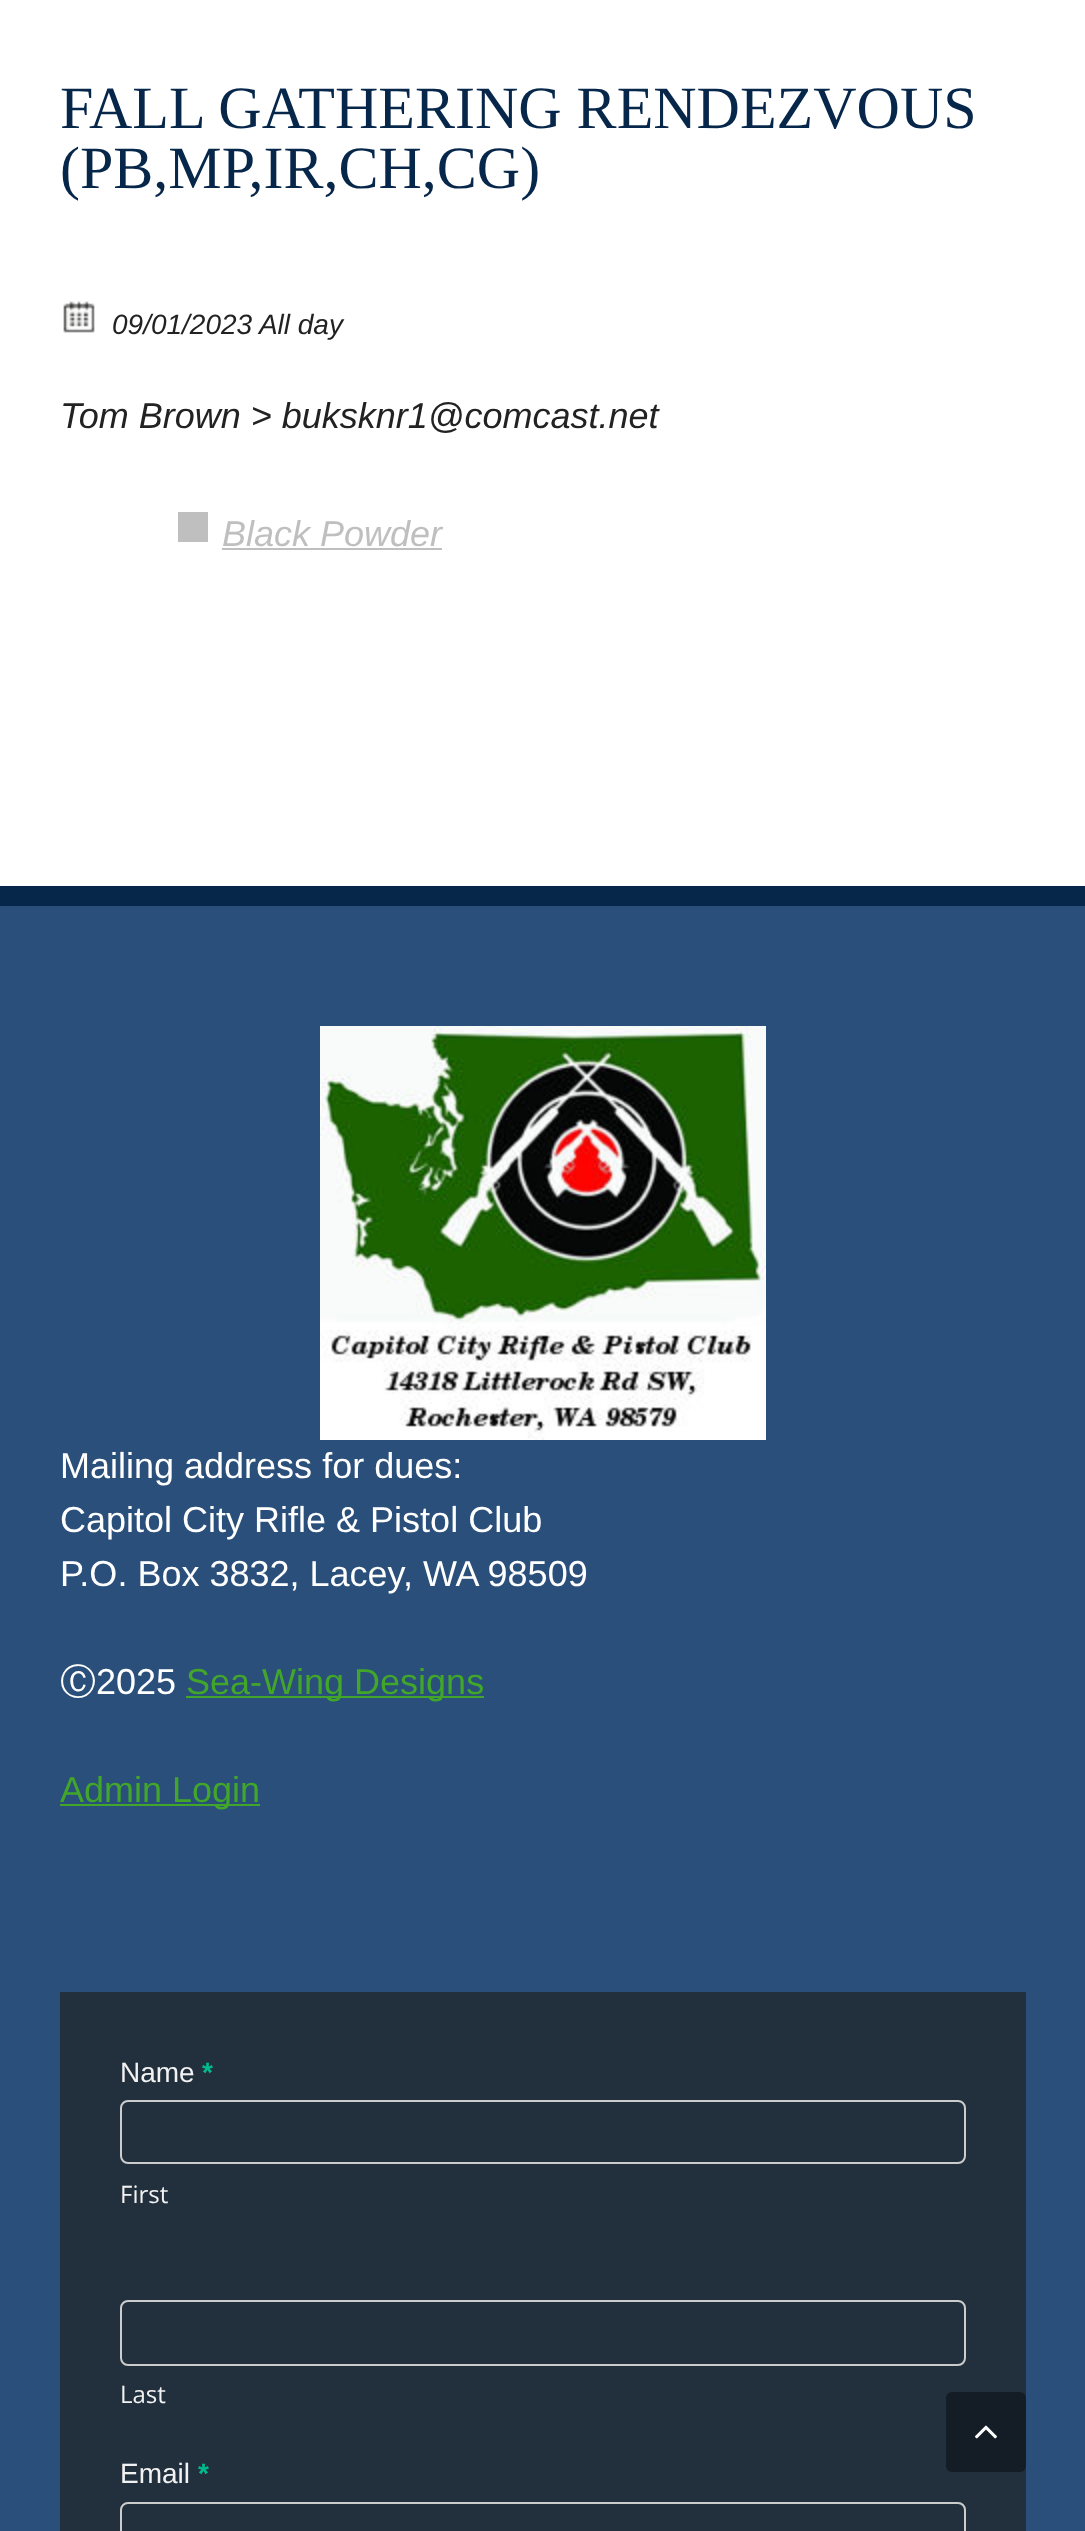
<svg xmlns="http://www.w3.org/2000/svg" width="1085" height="2531">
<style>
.a{font:60px Liberation Serif;fill:#06264a}
.b{font:italic 28px Liberation Sans;fill:#222}
.c{font:italic 36px Liberation Sans;fill:#222}
.d{font:italic 36px Liberation Sans;fill:#bfbfbf}
.e{font:36px Liberation Sans;fill:#fff}
.f{font:500 36px WenQuanYi Zen Hei;fill:#fff}
.g{font:36px Liberation Sans;fill:#41a62a}
.h{font:28px Liberation Sans;fill:#f2f2f2}
.i{font:bold 28px Liberation Sans;fill:#00ba8b}
.j{font:24px Open Sans;fill:#f2f2f2}
</style>
<rect width="100%" height="100%" fill="#fff"/>
<image href="1.png" x="63" y="301" width="32" height="32"/>
<path fill="#bfbfbf" d="M178 512h30v30H178z"/>
<path fill="#bfbfbf" d="M222 548h220v2H222z"/>
<path fill="#294f7a" d="M0 906h1085v1625H0z"/>
<path fill="#06264a" d="M0 886h1085v20H0z"/>
<image href="2.png" x="320" y="1026" width="446" height="414"/>
<path fill="#41a62a" d="M186 1696h298v2H186z"/>
<path fill="#41a62a" d="M60 1804h200v2H60z"/>
<path fill="#22303d" d="M60 1992h966v539H60z"/>
<rect fill="none" stroke="#ccc" stroke-width="2" x="121" y="2101" width="844" height="62" rx="7"/>
<rect fill="none" stroke="#ccc" stroke-width="2" x="121" y="2301" width="844" height="64" rx="7"/>
<rect fill="none" stroke="#ccc" stroke-width="2" x="121" y="2503" width="844" height="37" rx="7"/>
<rect fill="#141d25" x="946" y="2392" width="80" height="80" rx="6"/>
<image href="3.png" x="975" y="2425" width="22" height="14"/>
<text class="a" x="60" y="128">FALL GATHERING RENDEZVOUS</text>
<text class="a" x="60" y="188">(PB,MP,IR,CH,CG)</text>
<text class="b" x="112" y="334">09/01/2023 All day</text>
<text class="c" x="60" y="428">Tom Brown &gt; buksknr1@comcast.net</text>
<text class="d" x="222" y="546">Black Powder</text>
<text class="e" x="60" y="1478">Mailing address for dues:</text>
<text class="e" x="60" y="1532">Capitol City Rifle &amp; Pistol Club</text>
<text class="e" x="60" y="1586">P.O. Box 3832, Lacey, WA 98509</text>
<text class="f" x="60" y="1694">Ⓒ</text>
<text class="e" x="96" y="1694">2025</text>
<text class="g" x="186" y="1694">Sea-Wing Designs</text>
<text class="g" x="60" y="1802">Admin Login</text>
<text class="h" x="120" y="2082">Name</text>
<text class="i" x="202" y="2082">*</text>
<text class="j" x="120" y="2203">First</text>
<text class="j" x="120" y="2403">Last</text>
<text class="h" x="120" y="2483">Email</text>
<text class="i" x="198" y="2483">*</text>
</svg>
